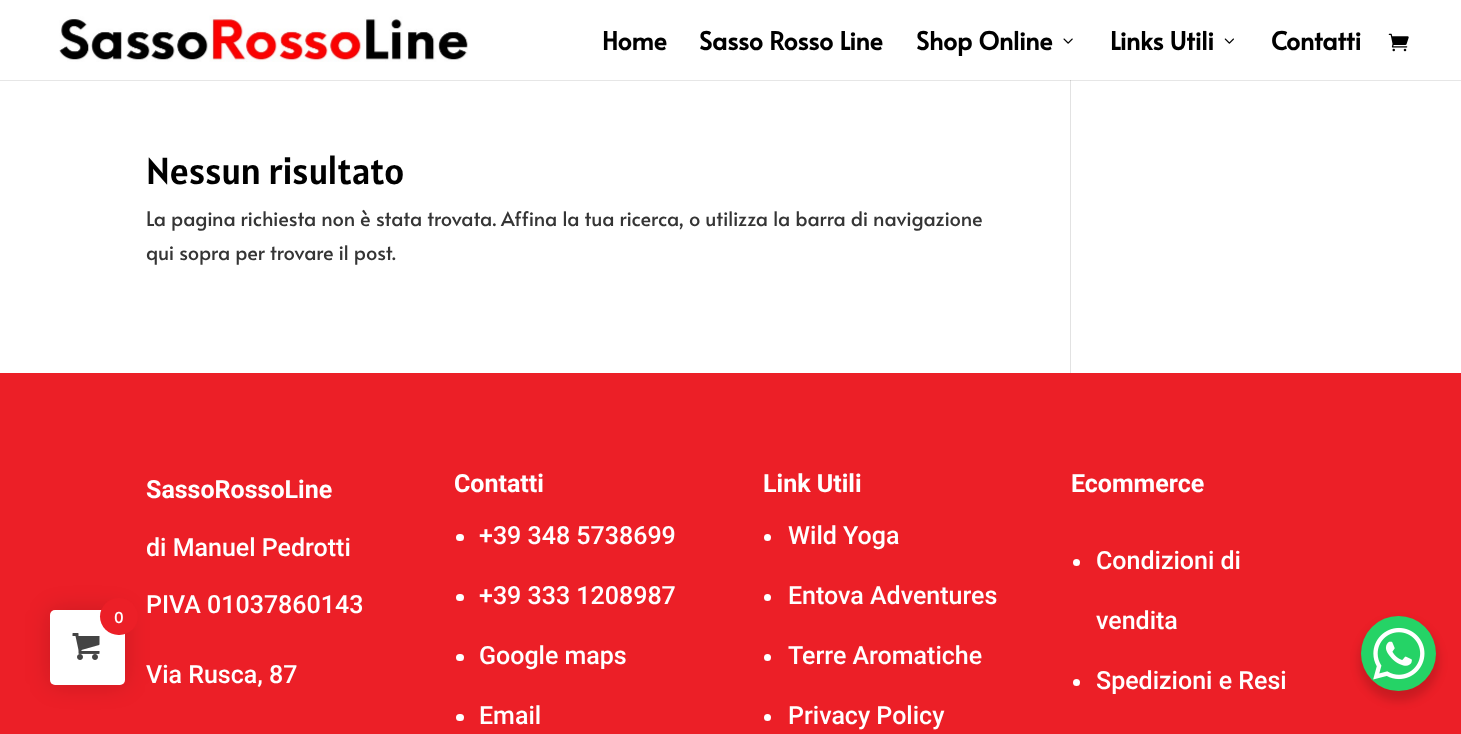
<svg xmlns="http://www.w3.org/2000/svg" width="1461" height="734">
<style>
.a{font:15px Alata;fill:#fff}
.b{font:bold 25px Alata;fill:#000}
.c{font:37.5px Alatsi;fill:#000}
.d{font:20px Alata;fill:#353535}
.e{font:bold 25px Roboto;fill:#fff}
.f{font:500 25px Roboto;fill:#fff}
</style>
<rect width="100%" height="100%" fill="#fff"/>
<path fill="#e6e6e6" d="M0 80h1461v1H0z"/>
<path fill="#ec1f27" d="M0 373h1461v361H0z"/>
<rect fill="#00000026" filter="blur(12.5px)" x="50" y="610" width="75" height="75" rx="5"/>
<rect fill="#fff" x="50" y="610" width="75" height="75" rx="5"/>
<rect fill="#ec1f27" x="100" y="598" width="38" height="37" rx="18.5"/>
<image href="1.png" x="72" y="633" width="28" height="27"/>
<path fill="#e2e2e2" d="M1070 79h1v294H1070z"/>
<path fill="#fff" d="M1070 79h1v1H1070z"/>
<image href="2.png" x="59" y="15" width="409" height="47"/>
<image href="3.png" x="1063" y="38" width="10" height="6"/>
<image href="4.png" x="1224" y="38" width="10" height="6"/>
<image href="5.png" x="1388" y="33" width="21" height="19"/>
<path fill="#cbcbcb" d="M1070 80h1v1H1070z"/>
<rect fill="#fff" x="456" y="534" width="8" height="7" rx="3.5"/>
<rect fill="#fff" x="456" y="594" width="8" height="7" rx="3.5"/>
<rect fill="#fff" x="456" y="654" width="8" height="7" rx="3.5"/>
<rect fill="#fff" x="456" y="714" width="8" height="7" rx="3.5"/>
<circle fill="#fff" cx="767.5" cy="537.5" r="3.5"/>
<circle fill="#fff" cx="767.5" cy="597.5" r="3.5"/>
<circle fill="#fff" cx="767.5" cy="657.5" r="3.5"/>
<circle fill="#fff" cx="767.5" cy="717.5" r="3.5"/>
<circle fill="#fff" cx="1076.5" cy="562.5" r="3.5"/>
<circle fill="#fff" cx="1076.5" cy="682.5" r="3.5"/>
<rect fill="#00000026" filter="blur(5px)" x="1359" y="621" width="80" height="80" rx="40"/>
<circle fill="#25d366" cx="1398.5" cy="653.5" r="37.5"/>
<image href="6.png" x="1373" y="627" width="52" height="53"/>
<text class="a" x="114" y="623">0</text>
<text class="b" x="602" y="50">Home</text>
<text class="b" x="699" y="50">Sasso Rosso Line</text>
<text class="b" x="916" y="50">Shop Online</text>
<text class="b" x="1110" y="50">Links Utili</text>
<text class="b" x="1271" y="50">Contatti</text>
<text class="c" x="146" y="184">Nessun risultato</text>
<text class="d" x="146" y="226">La pagina richiesta non è stata trovata. Affina la tua ricerca, o utilizza la barra di navigazione</text>
<text class="d" x="146" y="260">qui sopra per trovare il post.</text>
<text class="e" x="146" y="498">SassoRossoLine</text>
<text class="f" x="146" y="556">di Manuel Pedrotti</text>
<text class="f" x="146" y="613">PIVA 01037860143</text>
<text class="f" x="146" y="683">Via Rusca, 87</text>
<text class="e" x="454" y="492">Contatti</text>
<text class="f" x="479" y="544">+39 348 5738699</text>
<text class="f" x="479" y="604">+39 333 1208987</text>
<text class="f" x="479" y="664">Google maps</text>
<text class="f" x="479" y="724">Email</text>
<text class="e" x="763" y="492">Link Utili</text>
<text class="f" x="788" y="544">Wild Yoga</text>
<text class="f" x="788" y="604">Entova Adventures</text>
<text class="f" x="788" y="664">Terre Aromatiche</text>
<text class="f" x="788" y="724">Privacy Policy</text>
<text class="e" x="1071" y="492">Ecommerce</text>
<text class="f" x="1096" y="569">Condizioni di</text>
<text class="f" x="1096" y="629">vendita</text>
<text class="f" x="1096" y="689">Spedizioni e Resi</text>
</svg>
